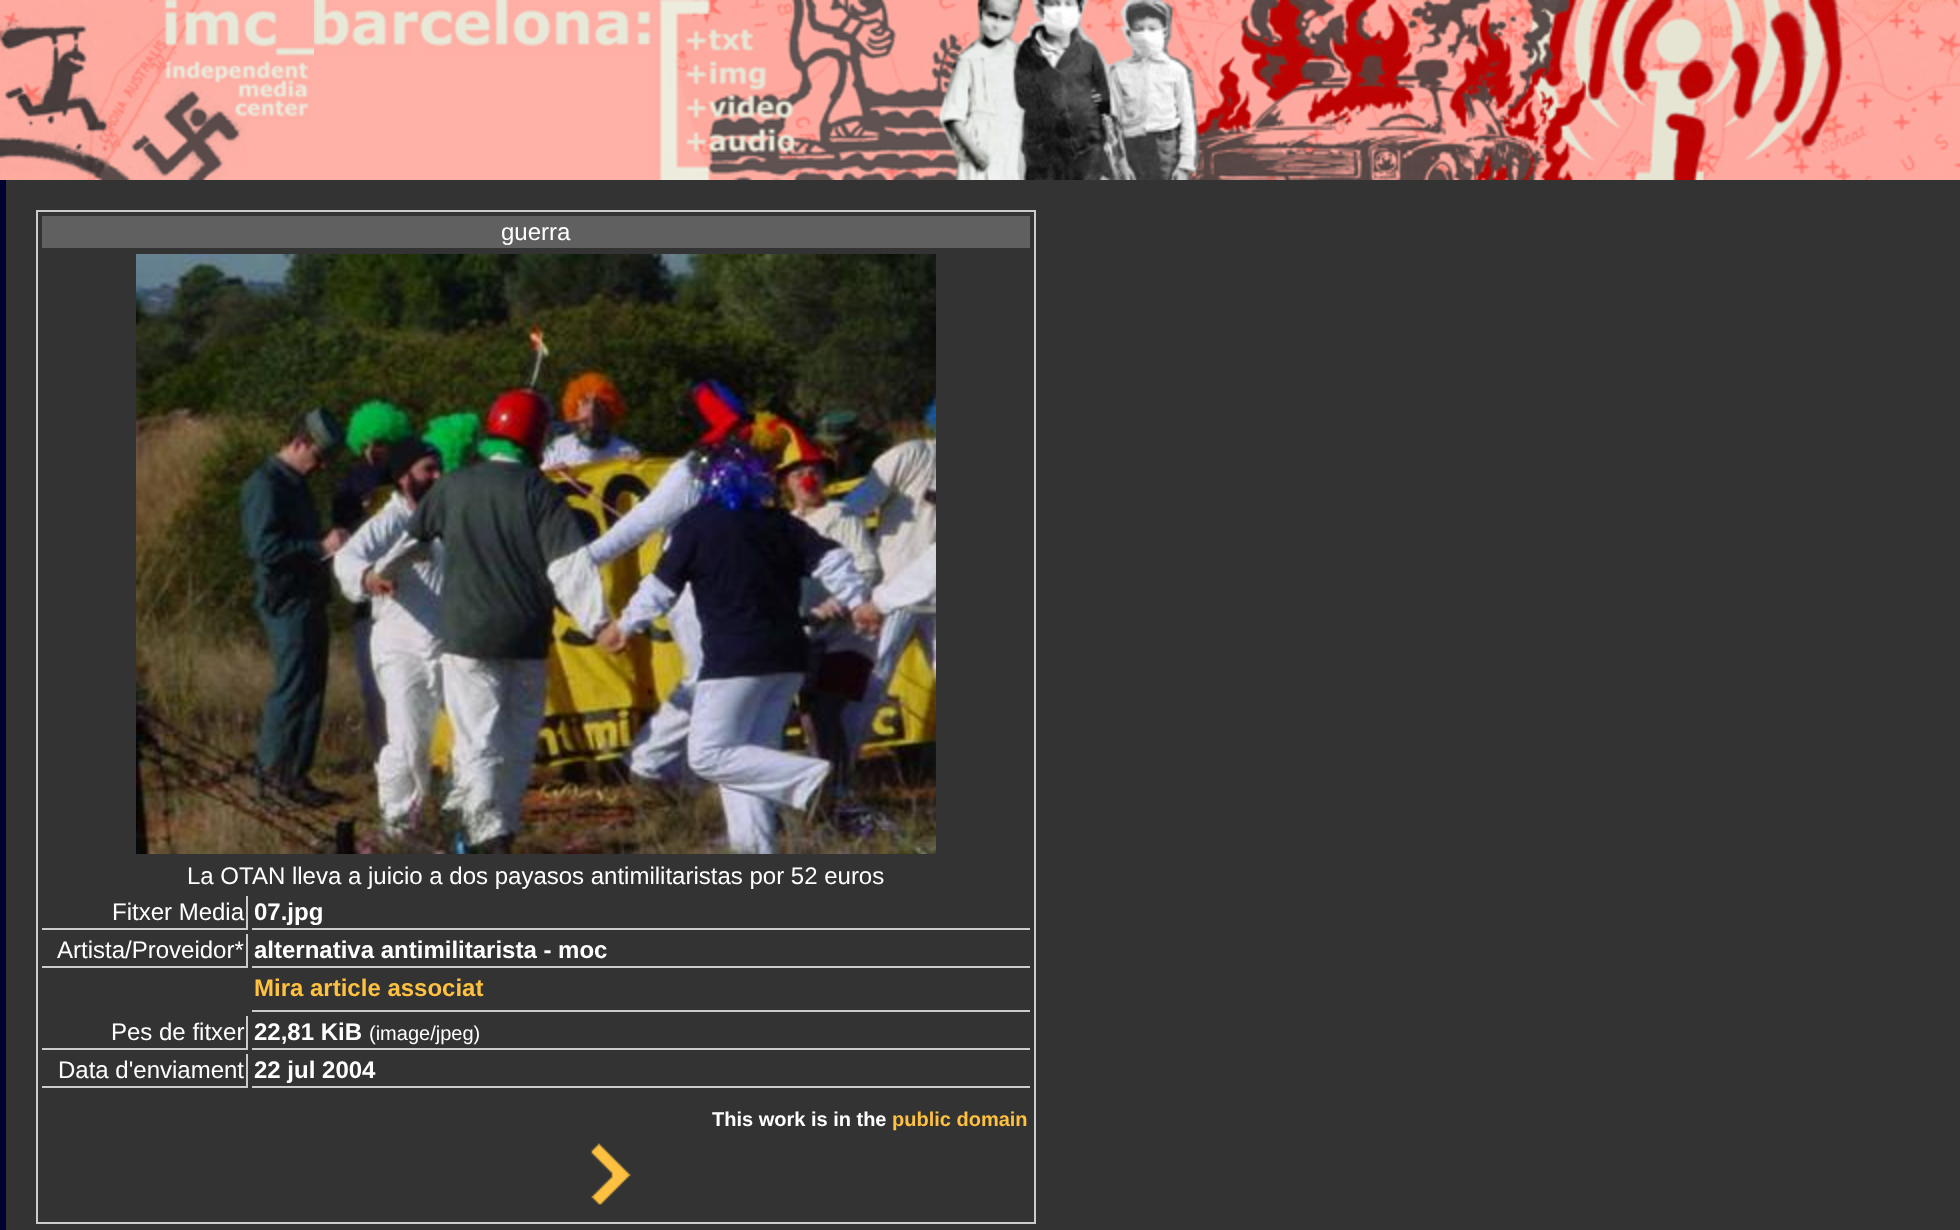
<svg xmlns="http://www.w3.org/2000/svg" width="1960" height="1230">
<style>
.a{font:24px Liberation Sans;fill:#fff}
.b{font:bold 24px Liberation Sans;fill:#fff}
.c{font:bold 24px Liberation Sans;fill:#ffc140}
.d{font:20px Liberation Sans;fill:#fff}
.e{font:bold 20px Liberation Sans;fill:#fff}
.f{font:bold 20px Liberation Sans;fill:#ffc140}
</style>
<rect width="100%" height="100%" fill="#333"/>
<image href="1.png" x="0" y="0" width="314" height="180"/>
<image href="2.png" x="314" y="0" width="1646" height="180"/>
<path fill="#003" d="M0 180h6v1050H0z"/>
<path fill="none" stroke="#ccc" stroke-width="2" d="M37 211h998v1012H37z"/>
<path fill="#606060" d="M42 216h988v32H42z"/>
<image href="3.png" x="136" y="254" width="800" height="600"/>
<path fill="#ccc" d="M246 896h2v34H246z"/>
<path fill="#ccc" d="M42 928h206v2H42z"/>
<path fill="#ccc" d="M252 928h778v2H252z"/>
<path fill="#ccc" d="M246 934h2v34H246z"/>
<path fill="#ccc" d="M42 966h206v2H42z"/>
<path fill="#ccc" d="M252 966h778v2H252z"/>
<path fill="#ccc" d="M252 1010h778v2H252z"/>
<path fill="#ccc" d="M246 1016h2v34H246z"/>
<path fill="#ccc" d="M42 1048h206v2H42z"/>
<path fill="#ccc" d="M252 1048h778v2H252z"/>
<path fill="#ccc" d="M246 1054h2v34H246z"/>
<path fill="#ccc" d="M42 1086h206v2H42z"/>
<path fill="#ccc" d="M252 1086h778v2H252z"/>
<image href="4.png" x="591" y="1143" width="40" height="62"/>
<text class="a" x="501" y="240">guerra</text>
<text class="a" x="187" y="884">La OTAN lleva a juicio a dos payasos antimilitaristas por 52 euros</text>
<text class="a" x="112" y="920">Fitxer Media</text>
<text class="b" x="254" y="920">07.jpg</text>
<text class="a" x="57" y="958">Artista/Proveidor*</text>
<text class="b" x="254" y="958">alternativa antimilitarista - moc</text>
<text class="c" x="254" y="996">Mira article associat</text>
<text class="a" x="111" y="1040">Pes de fitxer</text>
<text class="b" x="254" y="1040">22,81 KiB</text>
<text class="d" x="369" y="1040">(image/jpeg)</text>
<text class="a" x="58" y="1078">Data d'enviament</text>
<text class="b" x="254" y="1078">22 jul 2004</text>
<text class="e" x="712" y="1126">This work is in the</text>
<text class="f" x="892" y="1126">public domain</text>
</svg>
